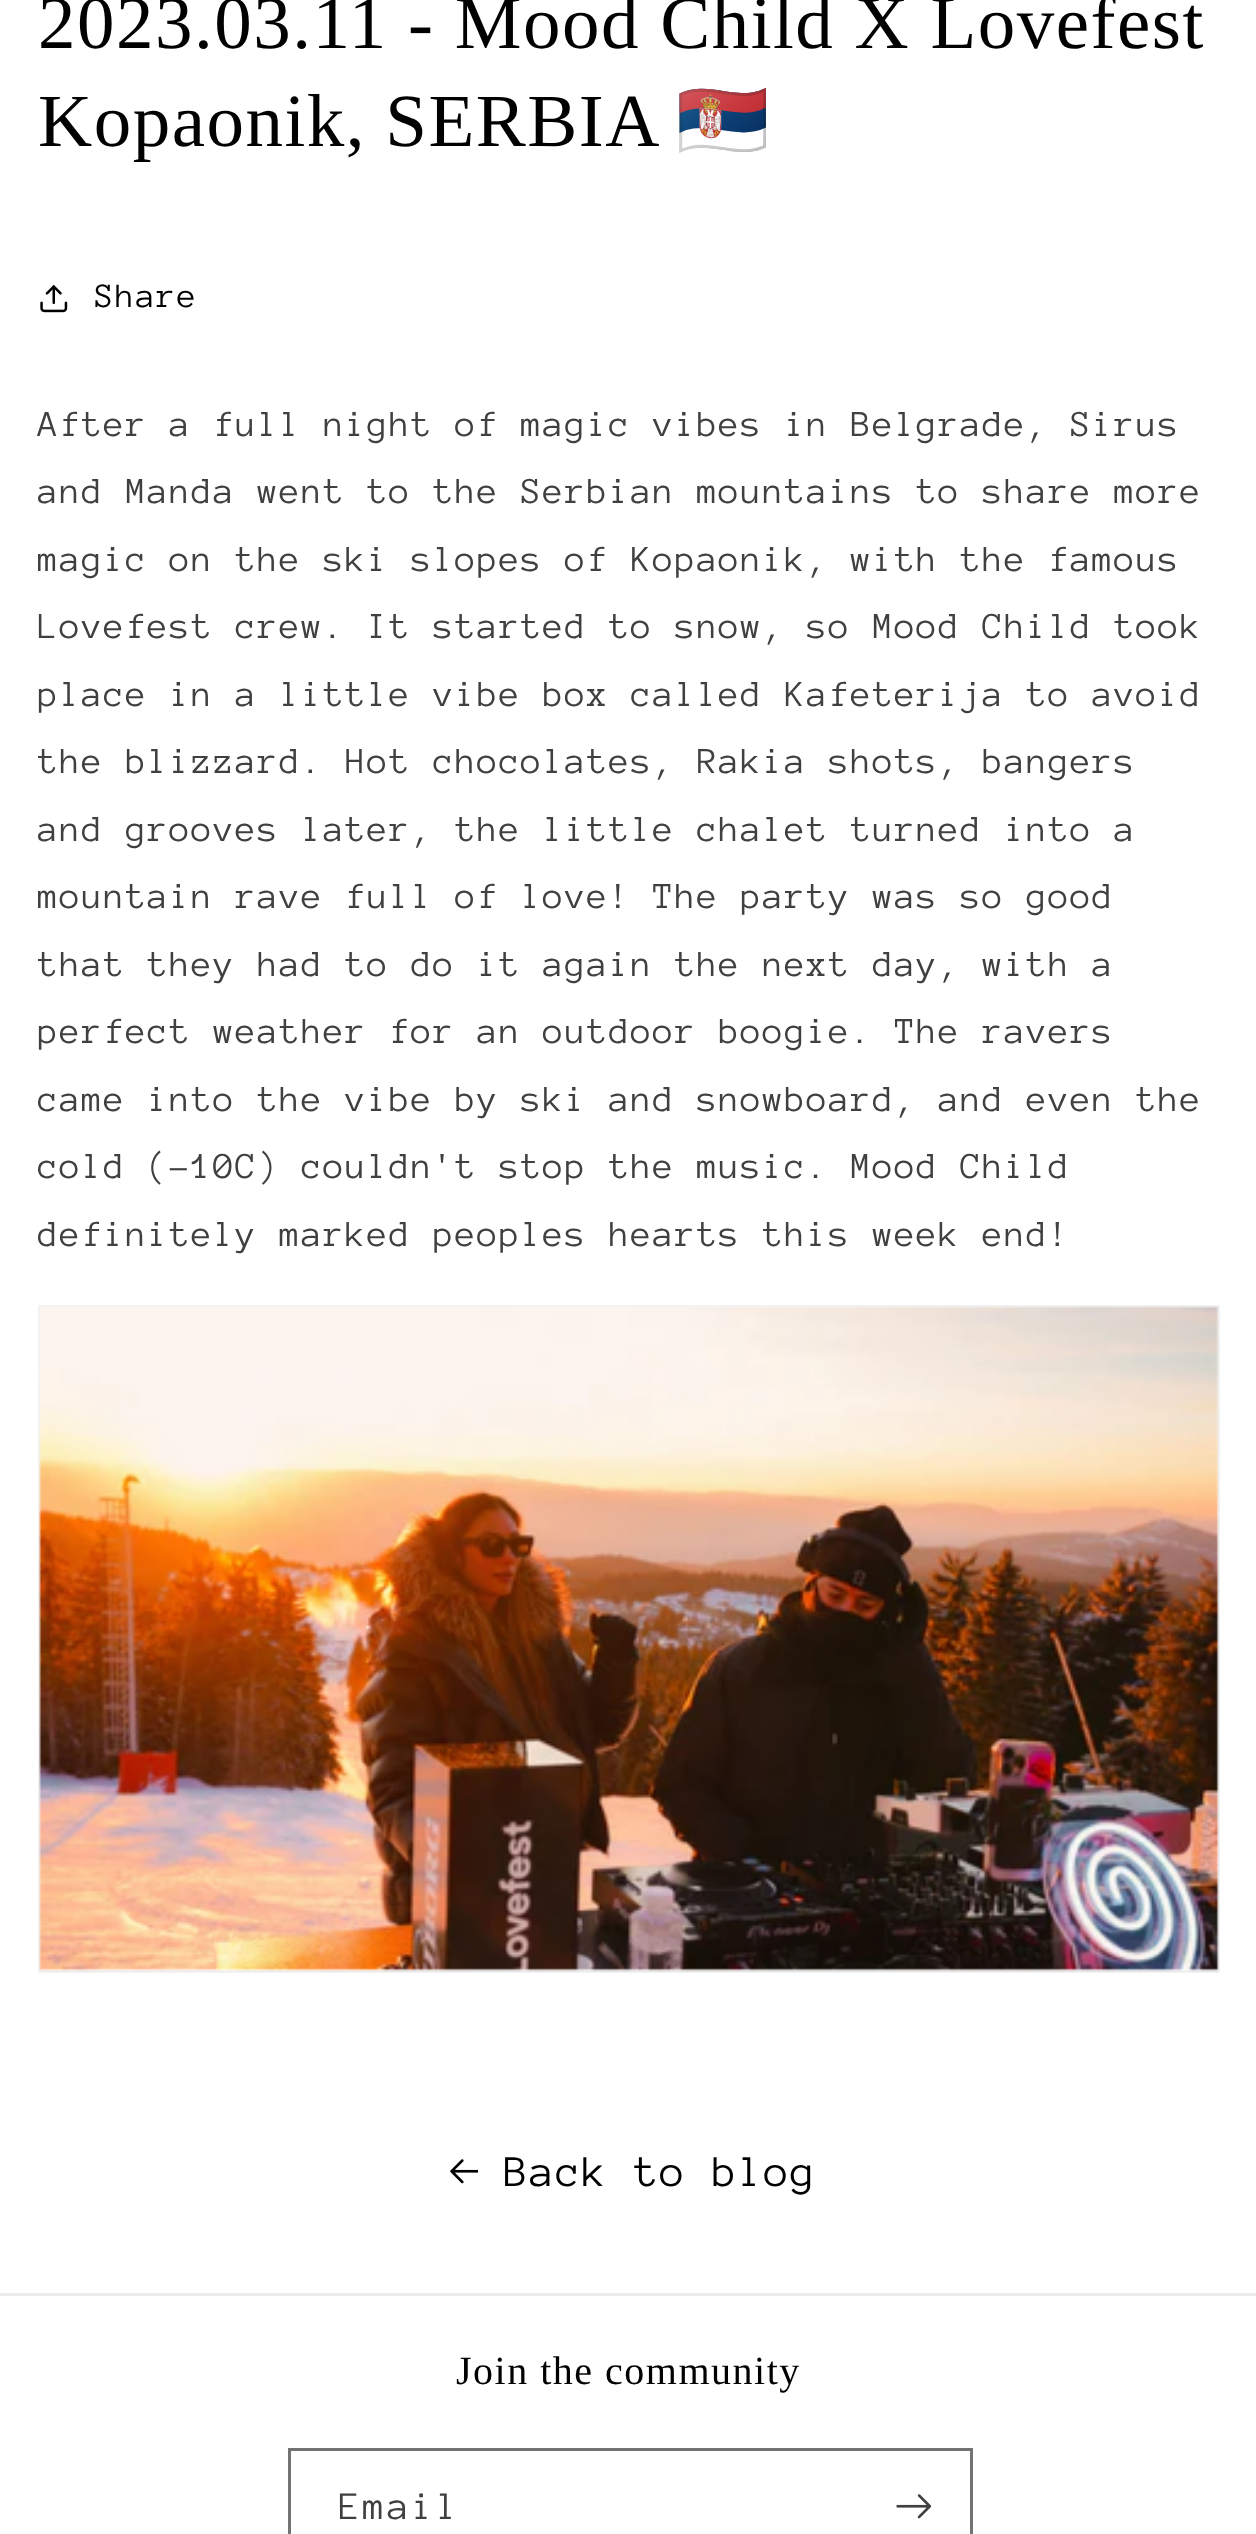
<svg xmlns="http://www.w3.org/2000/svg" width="1256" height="2534">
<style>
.a{font:75px Liberation Serif;letter-spacing:1.5px;fill:#000}
.b{font:75px Noto Color Emoji;letter-spacing:1.5px;fill:#000}
.c{font:35px Anonymous Pro;letter-spacing:1.5px;fill:#000}
.d{font:37.5px Anonymous Pro;letter-spacing:1.5px;fill:#404040}
.e{font:45px Anonymous Pro;letter-spacing:1.5px;fill:#000}
.f{font:40px Liberation Serif;letter-spacing:1.5px;fill:#000}
.g{font:40px Anonymous Pro;letter-spacing:2.5px;fill:#404040}
</style>
<rect width="100%" height="100%" fill="#fff"/>
<image href="1.png" x="40" y="285" width="28" height="28"/>
<path fill="none" stroke="#f2f2f2" stroke-width="3" d="M39.5 1306.5h1179v665H39.5z"/>
<image href="2.png" x="39" y="1306" width="1180" height="666"/>
<image href="3.png" x="450" y="2159" width="28" height="25"/>
<path fill="#ebebeb" d="M0 2293h1256v3H0z"/>
<path fill="none" stroke="#737373" stroke-width="3" d="M289.5 2449.5h682v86H289.5z"/>
<image href="4.png" x="896" y="2494" width="36" height="25"/>
<text class="a" x="38" y="48">2023.03.11 - Mood Child X Lovefest</text>
<text class="a" x="38" y="146" word-spacing="-1">Kopaonik, SERBIA</text>
<text class="b" x="676" y="146">🇷🇸</text>
<text class="c" x="95" y="307">Share</text>
<text class="d" x="38" y="436">After a full night of magic vibes in Belgrade, Sirus</text>
<text class="d" x="38" y="503">and Manda went to the Serbian mountains to share more</text>
<text class="d" x="38" y="571">magic on the ski slopes of Kopaonik, with the famous</text>
<text class="d" x="38" y="638">Lovefest crew. It started to snow, so Mood Child took</text>
<text class="d" x="38" y="706">place in a little vibe box called Kafeterija to avoid</text>
<text class="d" x="38" y="773">the blizzard. Hot chocolates, Rakia shots, bangers</text>
<text class="d" x="38" y="841">and grooves later, the little chalet turned into a</text>
<text class="d" x="38" y="908">mountain rave full of love! The party was so good</text>
<text class="d" x="38" y="976">that they had to do it again the next day, with a</text>
<text class="d" x="38" y="1043">perfect weather for an outdoor boogie. The ravers</text>
<text class="d" x="38" y="1111">came into the vibe by ski and snowboard, and even the</text>
<text class="d" x="38" y="1178">cold (-10C) couldn't stop the music. Mood Child</text>
<text class="d" x="38" y="1246">definitely marked peoples hearts this week end!</text>
<text class="e" x="504" y="2186">Back to blog</text>
<text class="f" x="456" y="2384">Join the community</text>
<text class="g" x="339" y="2519">Email</text>
</svg>
